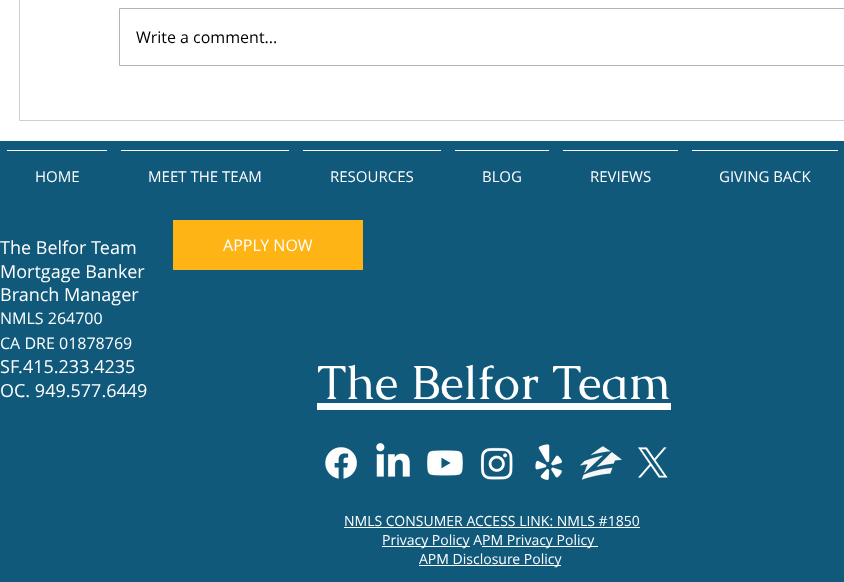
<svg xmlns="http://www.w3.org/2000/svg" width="844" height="582">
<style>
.a{font:16px Open Sans;fill:#000}
.b{font:15px Open Sans;fill:#fff}
.c{font:18px Open Sans;fill:#fff}
.d{font:16px Open Sans;fill:#fff}
.e{font:48px Caudex;fill:#fff}
.f{font:14px Open Sans;fill:#fff}
</style>
<rect width="100%" height="100%" fill="#fff"/>
<path fill="none" stroke="#cfcfcf" d="M19.5 -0.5h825v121H19.5z"/>
<path fill="none" stroke="#b3b3b3" d="M119.5 8.5h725v57H119.5z"/>
<path fill="#10597b" d="M0 141h844v441H0z"/>
<path fill="#fff" d="M7 150h100v1H7z"/>
<path fill="#fff" d="M121 150h168v1H121z"/>
<path fill="#fff" d="M303 150h138v1H303z"/>
<path fill="#fff" d="M455 150h94v1H455z"/>
<path fill="#fff" d="M563 150h115v1H563z"/>
<path fill="#fff" d="M692 150h146v1H692z"/>
<path fill="#fff" d="M317 403h354v7H317z"/>
<image href="1.png" x="325" y="447" width="32" height="32"/>
<image href="2.png" x="376" y="443" width="34" height="34"/>
<image href="3.png" x="427" y="450" width="36" height="26"/>
<image href="4.png" x="480" y="447" width="33" height="33"/>
<image href="5.png" x="535" y="444" width="28" height="37"/>
<image href="6.png" x="580" y="446" width="42" height="34"/>
<image href="7.png" x="638" y="447" width="30" height="31"/>
<path fill="#fff" d="M344 527h296v1H344z"/>
<path fill="#fff" d="M382 546h88v1H382z"/>
<path fill="#fff" d="M482 546h116v1H482z"/>
<path fill="#fff" d="M419 565h142v1H419z"/>
<path fill="#fdb414" d="M173 220h190v50H173z"/>
<text class="a" x="136" y="43">Write a comment...</text>
<text class="b" x="35" y="182">HOME</text>
<text class="b" x="148" y="182">MEET THE TEAM</text>
<text class="b" x="330" y="182">RESOURCES</text>
<text class="b" x="482" y="182">BLOG</text>
<text class="b" x="590" y="182">REVIEWS</text>
<text class="b" x="719" y="182">GIVING BACK</text>
<text class="c" x="0" y="254">The Belfor Team</text>
<text class="c" x="0" y="278">Mortgage Banker</text>
<text class="c" x="0" y="301">Branch Manager</text>
<text class="d" x="0" y="324">NMLS 264700</text>
<text class="d" x="0" y="349">CA DRE 01878769</text>
<text class="c" x="0" y="373">SF.415.233.4235</text>
<text class="c" x="0" y="397">OC. 949.577.6449</text>
<text class="e" x="317" y="399">The Belfor Team</text>
<text class="f" x="344" y="526">NMLS CONSUMER ACCESS LINK: NMLS #1850</text>
<text class="f" x="382" y="545">Privacy Policy A</text>
<text class="f" x="482" y="545">PM Privacy Policy</text>
<text class="f" x="419" y="564">APM Disclosure Policy</text>
<text class="d" x="223" y="251">APPLY NOW</text>
</svg>
